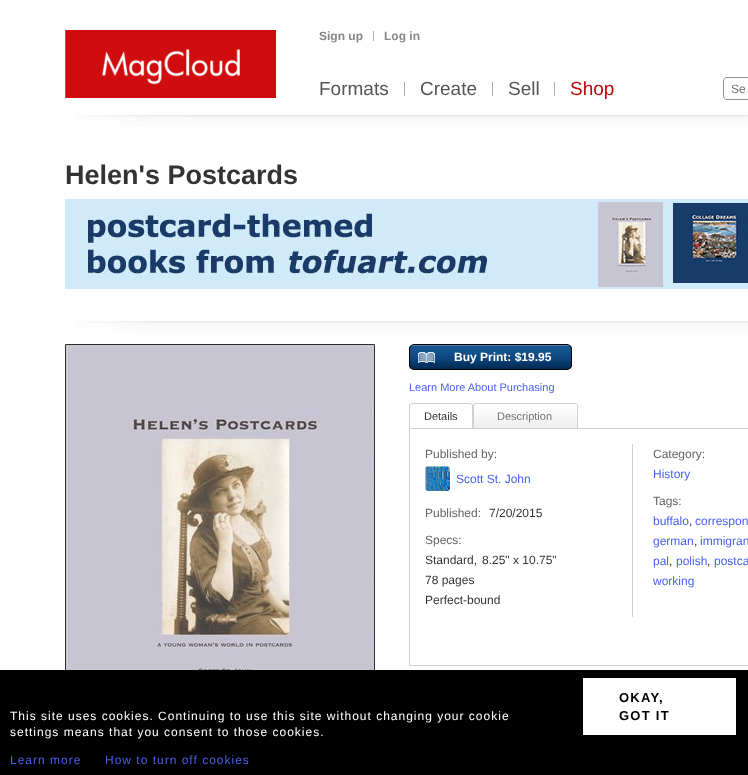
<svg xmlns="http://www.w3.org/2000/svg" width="748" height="775">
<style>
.a{font:bold 12px Liberation Sans;fill:#888}
.b{font:19px Liberation Sans;fill:#555}
.c{font:19px Liberation Sans;fill:#b7090a}
.d{font:12px Liberation Sans;fill:#727272}
.e{font:bold 27px Liberation Sans;fill:#333}
.f{font:bold 12px Liberation Sans;fill:#fff}
.g{font:11px Liberation Sans;fill:#485ff0}
.h{font:11px Liberation Sans;fill:#333}
.i{font:11px Liberation Sans;fill:#727272}
.j{font:12px Liberation Sans;fill:#646464}
.k{font:12px Liberation Sans;fill:#485ff0}
.l{font:12px Liberation Sans;fill:#333}
.m{font:bold 13px Liberation Sans;letter-spacing:1.25px;fill:#000}
.n{font:12px Liberation Sans;letter-spacing:1px;fill:#fff}
.o{font:12px Liberation Sans;letter-spacing:1px;fill:#485ff0}
</style>
<rect width="100%" height="100%" fill="#fff"/>
<path fill="#d00d0e" d="M240 30h36v68H240z"/>
<image href="1.png" x="65" y="30" width="175" height="68"/>
<path fill="#adadad" d="M373 31h1v10H373z"/>
<path fill="#adadad" d="M404 82h1v14H404z"/>
<path fill="#adadad" d="M492 82h1v14H492z"/>
<path fill="#adadad" d="M554 82h1v14H554z"/>
<path fill="none" stroke="#909090" d="M727 77.5h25.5v22h-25.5c-2 0-3.5-1.5-3.5-3.5v-15c0-2 1.5-3.5 3.5-3.5z"/>
<image href="2.png" x="77" y="115" width="671" height="12"/>
<image href="3.png" x="65" y="199" width="683" height="90"/>
<image href="2.png" x="77" y="321" width="671" height="12"/>
<path fill="none" stroke="#352d2d" d="M65.5 344.5h309v402H65.5z"/>
<image href="4.png" x="66" y="345" width="308" height="325"/>
<image href="5.png" x="409" y="345" width="163" height="24"/>
<rect fill="none" stroke="#000" x="409.5" y="344.5" width="162" height="25" rx="4.5"/>
<image href="6.png" x="418" y="352" width="17" height="11"/>
<path fill="#d0d0d0" d="M412 403l-2 1l1 1l1-1h58l1 1l1-1l-2-1z"/>
<path fill="#d0d0d0" d="M473 429v-23c0-1 0-2-1-2l-.5 .5c.5 .5 .5 1 .5 1.5v22z"/>
<path fill="#d0d0d0" d="M409 429l1-1v-22c0-.5 0-1 .5-1.5l-.5-.5c-1 0-1 1-1 2z"/>
<image href="7.png" x="473" y="403" width="105" height="25"/>
<path fill="none" stroke="#d0d0d0" d="M476 403.5h99c1.5 0 2.5 1 2.5 2.5v22.5h-104v-22.5c0-1.5 1-2.5 2.5-2.5z"/>
<path fill="none" stroke="#d0d0d0" d="M409.5 428.5h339v237H409.5z"/>
<path fill="#d0d0d0" d="M632 444h1v173H632z"/>
<image href="8.png" x="425" y="466" width="25" height="25"/>
<path fill="#000" d="M0 670h748v105H0z"/>
<path fill="#fff" d="M583 678h153v57H583z"/>
<text class="a" x="319" y="40">Sign up</text>
<text class="a" x="384" y="40">Log in</text>
<text class="b" x="319" y="95">Formats</text>
<text class="b" x="420" y="95">Create</text>
<text class="b" x="508" y="95">Sell</text>
<text class="c" x="570" y="95">Shop</text>
<text class="d" x="731" y="93">Se</text>
<text class="e" x="65" y="184">Helen's Postcards</text>
<text class="f" x="454" y="361">Buy Print: $19.95</text>
<text class="g" x="409" y="391">Learn More About Purchasing</text>
<text class="h" x="424" y="420">Details</text>
<text class="i" x="497" y="420">Description</text>
<text class="j" x="425" y="458">Published by:</text>
<text class="k" x="456" y="483">Scott St. John</text>
<text class="j" x="425" y="517">Published:</text>
<text class="l" x="489" y="517">7/20/2015</text>
<text class="j" x="425" y="544">Specs:</text>
<text class="l" x="425" y="564">Standard,</text>
<text class="l" x="482" y="564">8.25" x 10.75"</text>
<text class="l" x="425" y="584">78 pages</text>
<text class="l" x="425" y="604">Perfect-bound</text>
<text class="j" x="653" y="458">Category:</text>
<text class="k" x="653" y="478">History</text>
<text class="j" x="653" y="505">Tags:</text>
<text class="k" x="653" y="525">buffalo</text>
<text class="l" x="689" y="525">,</text>
<text class="k" x="695" y="525">correspon</text>
<text class="k" x="653" y="545">german</text>
<text class="l" x="694" y="545">,</text>
<text class="k" x="700" y="545">immigran</text>
<text class="k" x="653" y="565">pal</text>
<text class="l" x="669" y="565">,</text>
<text class="k" x="676" y="565">polish</text>
<text class="l" x="707" y="565">,</text>
<text class="k" x="714" y="565">postca</text>
<text class="k" x="653" y="585">working</text>
<text class="m" x="619" y="702">OKAY,</text>
<text class="m" x="619" y="720">GOT IT</text>
<text class="n" x="10" y="720">This site uses cookies. Continuing to use this site without changing your cookie</text>
<text class="n" x="10" y="736">settings means that you consent to those cookies.</text>
<text class="o" x="10" y="764">Learn more</text>
<text class="o" x="105" y="764">How to turn off cookies</text>
</svg>
